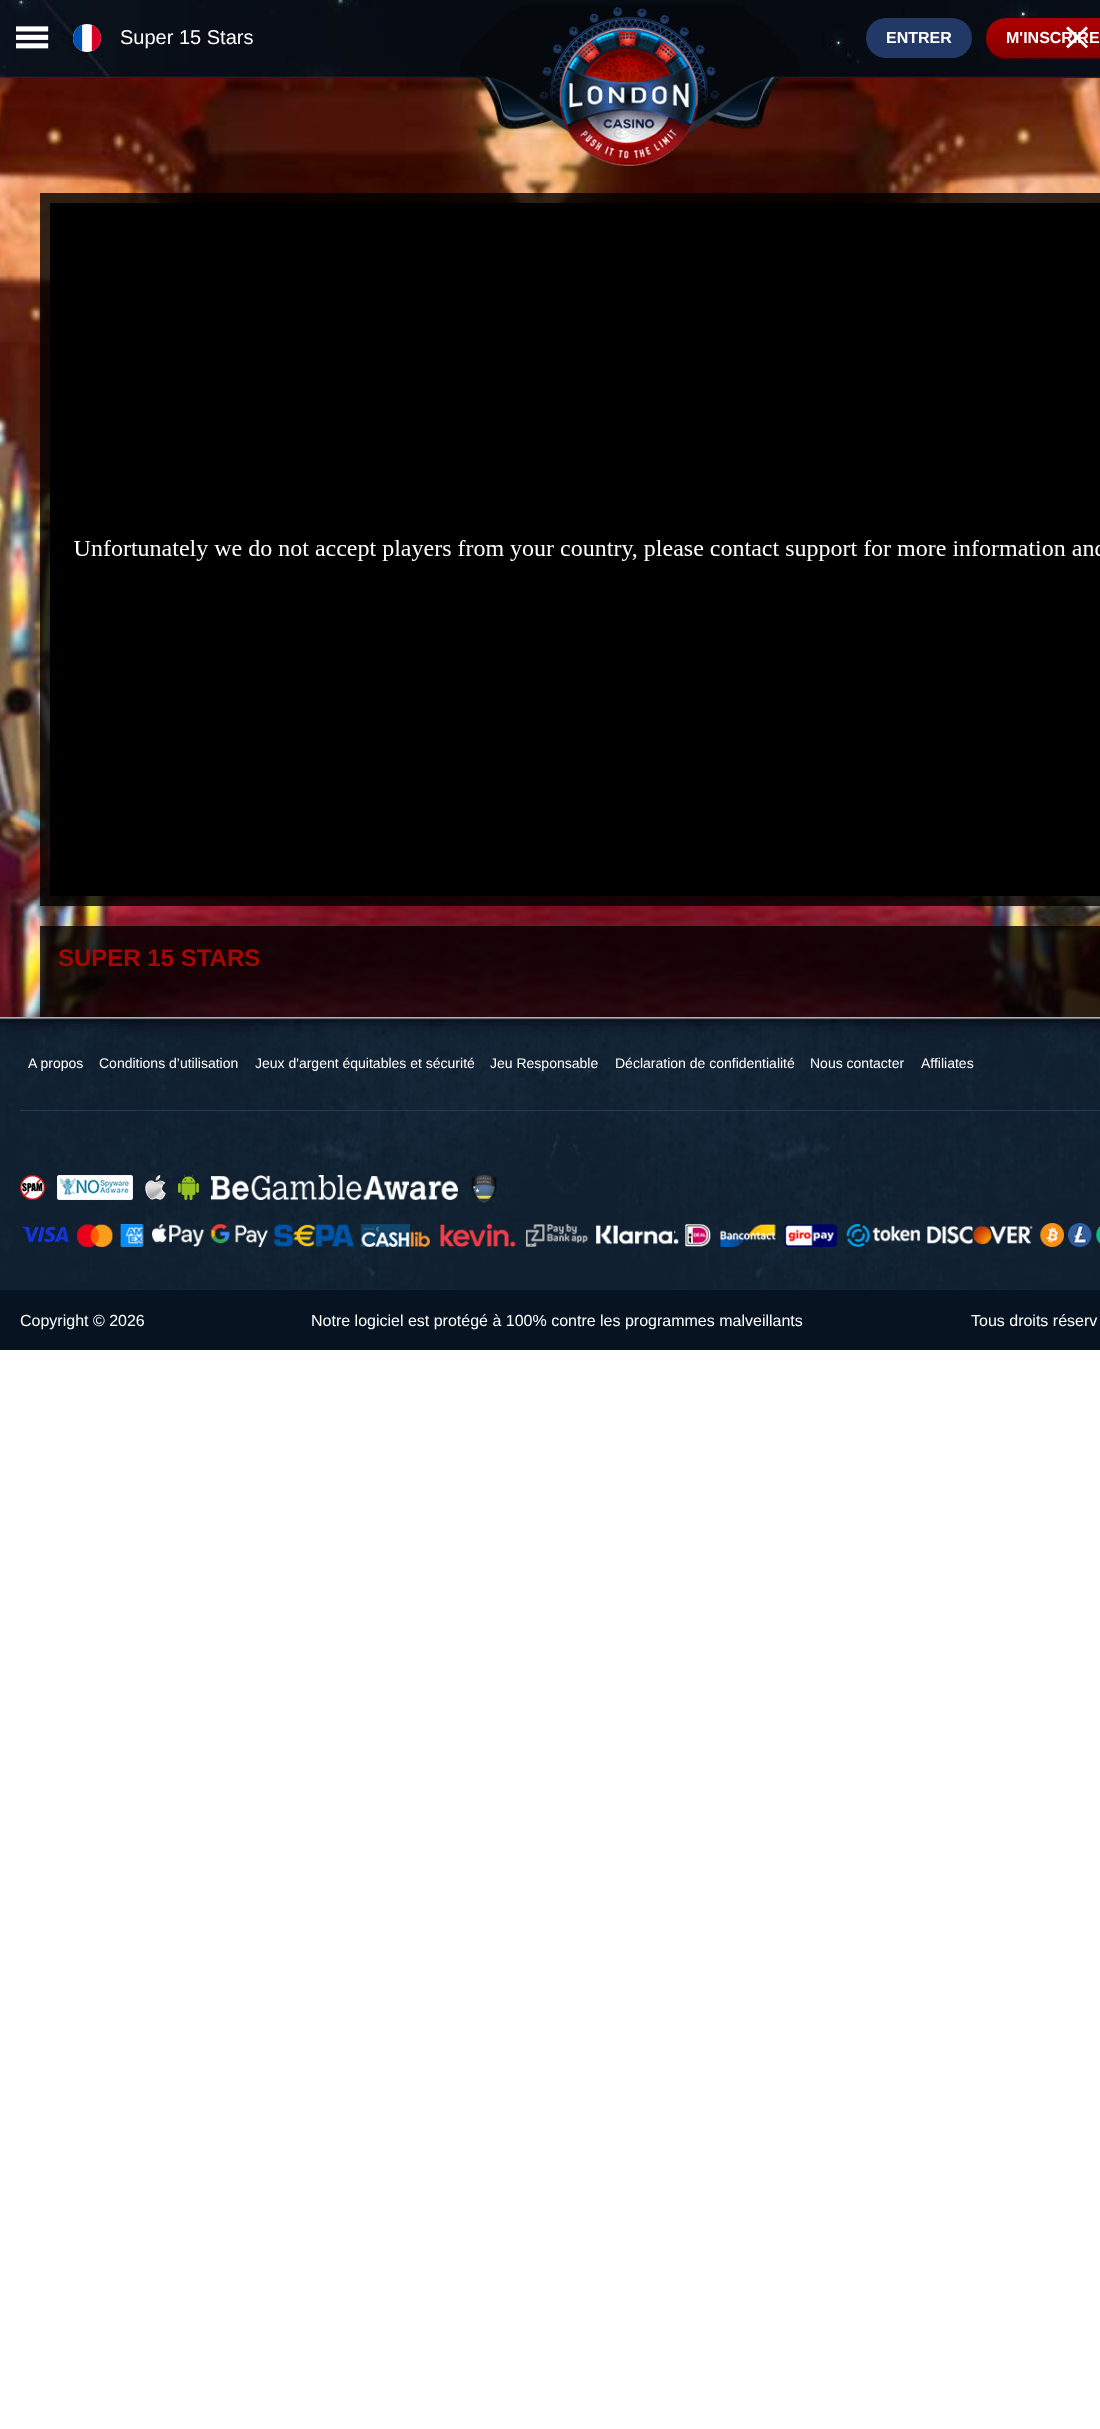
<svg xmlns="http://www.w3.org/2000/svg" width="1100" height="2429">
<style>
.a{font:20px Liberation Sans;fill:#fff}
.b{font:bold 16px Liberation Sans;fill:#fff}
.c{font:bold 24px Liberation Sans;fill:#a80602}
.d{font:14px Liberation Sans;fill:#fff}
.e{font:16px Liberation Sans;fill:#fff}
</style>
<defs>
<linearGradient id="g1" gradientUnits="userSpaceOnUse" x1="1053" y1="18" x2="1053" y2="58"><stop offset="0" stop-color="#a80101"/><stop offset="0.03" stop-color="#ac0000"/><stop offset="0.13" stop-color="#a00"/><stop offset="1" stop-color="#860000"/></linearGradient>
</defs>
<rect width="100%" height="100%" fill="#fff"/>
<image href="1.png" x="0" y="78" width="1100" height="939"/>
<image href="3.png" x="0" y="0" width="1100" height="78"/>
<image href="4.png" x="460" y="5" width="340" height="139"/>
<image href="5.png" x="540" y="7" width="180" height="159"/>
<image href="6.png" x="16" y="26" width="33" height="23"/>
<image href="7.png" x="73" y="24" width="28" height="28"/>
<rect fill="#223867" x="866" y="18" width="106" height="40" rx="20"/>
<rect fill="#400" filter="blur(0.5px)" x="986" y="20" width="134" height="40" rx="20"/>
<rect fill="url(#g1)" x="986" y="18" width="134" height="40" rx="20"/>
<path fill="#000000cc" d="M40 193h1060v713H40z"/>
<image href="8.png" x="50" y="203" width="1050" height="675"/>
<path fill="#000" d="M50 878h1050v18H50z"/>
<path fill="#000000cc" d="M40 926h1060v91H40z"/>
<image href="9.png" x="0" y="1018" width="1100" height="272"/>
<path fill="#b0adc0" d="M0 1017h1100v1H0z"/>
<path fill="#233c54" d="M20 1110h1080v1H20z"/>
<image href="10.png" x="20" y="1175" width="25" height="25"/>
<image href="11.png" x="57" y="1175" width="76" height="25"/>
<image href="12.png" x="145" y="1175" width="21" height="25"/>
<image href="13.png" x="178" y="1175" width="21" height="25"/>
<image href="14.png" x="211" y="1175" width="247" height="25"/>
<image href="15.png" x="471" y="1175" width="26" height="28"/>
<image href="16.png" x="21" y="1223" width="1079" height="24"/>
<path fill="#061422" d="M0 1290h1100v60H0z"/>
<text class="a" x="120" y="44">Super 15 Stars</text>
<text class="b" x="886" y="43">ENTRER</text>
<text class="b" x="1006" y="43">M'INSCRIRE</text>
<image href="2.png" x="1066" y="26" width="22" height="23"/>
<text class="c" x="58" y="966">SUPER 15 STARS</text>
<text class="d" x="28" y="1068">A propos</text>
<text class="d" x="99" y="1068">Conditions d’utilisation</text>
<text class="d" x="255" y="1068">Jeux d'argent équitables et sécurité</text>
<text class="d" x="490" y="1068">Jeu Responsable</text>
<text class="d" x="615" y="1068">Déclaration de confidentialité</text>
<text class="d" x="810" y="1068">Nous contacter</text>
<text class="d" x="921" y="1068">Affiliates</text>
<text class="e" x="20" y="1326">Copyright © 2026</text>
<text class="e" x="311" y="1326">Notre logiciel est protégé à 100% contre les programmes malveillants</text>
<text class="e" x="971" y="1326">Tous droits réserv</text>
</svg>
